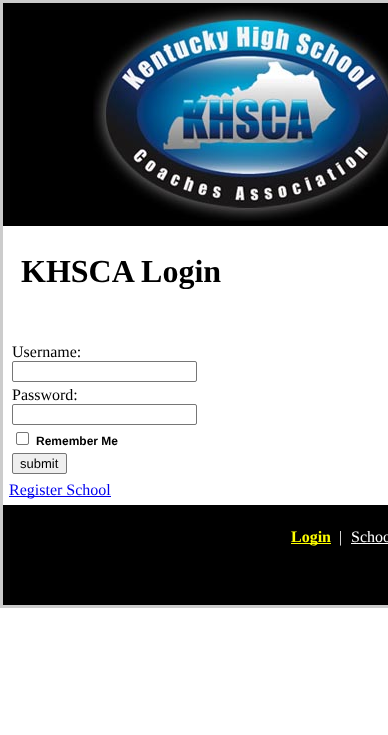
<svg xmlns="http://www.w3.org/2000/svg" width="388" height="735">
<style>
.a{font:bold 32px Liberation Serif;fill:#000}
.b{font:16px Liberation Serif;fill:#000}
.c{font:bold 12px Liberation Sans;fill:#000}
.d{font:13px Liberation Sans;fill:#000}
.e{font:16px Liberation Serif;fill:#00e}
.f{font:bold 16px Liberation Serif;fill:#ff0}
.g{font:16px Liberation Serif;fill:#fff}
</style>
<rect width="100%" height="100%" fill="#fff"/>
<path fill="#ccc" d="M0 0h388v3H0z"/>
<path fill="#ccc" d="M0 0h3v505H0z"/>
<path fill="#000" d="M3 3h385v223H3z"/>
<image href="1.png" x="93" y="6" width="295" height="215"/>
<rect fill="none" stroke="#767676" x="12.5" y="361.5" width="184" height="20" rx="1.5"/>
<rect fill="none" stroke="#767676" x="12.5" y="404.5" width="184" height="20" rx="1.5"/>
<rect fill="none" stroke="#767676" x="16.5" y="432.5" width="12" height="12" rx="1.5"/>
<rect fill="#efefef" stroke="#767676" x="12.5" y="453.5" width="54" height="20" rx="1.5"/>
<path fill="#00e" d="M9 496h102v1H9z"/>
<path fill="#ccc" d="M0 605h388v3H0z"/>
<path fill="#ccc" d="M0 505h3v103H0z"/>
<path fill="#000" d="M3 505h385v100H3z"/>
<path fill="#ff0" d="M291 543h40v1H291z"/>
<path fill="#fff" d="M351 543h37v1H351z"/>
<text class="a" x="21" y="282">KHSCA Login</text>
<text class="b" x="12" y="357">Username:</text>
<text class="b" x="12" y="400">Password:</text>
<text class="c" x="36" y="445">Remember Me</text>
<text class="d" x="20" y="468">submit</text>
<text class="e" x="9" y="495">Register School</text>
<text class="f" x="291" y="542">Login</text>
<text class="g" x="339" y="542">|</text>
<text class="g" x="351" y="542">Schoo</text>
</svg>
